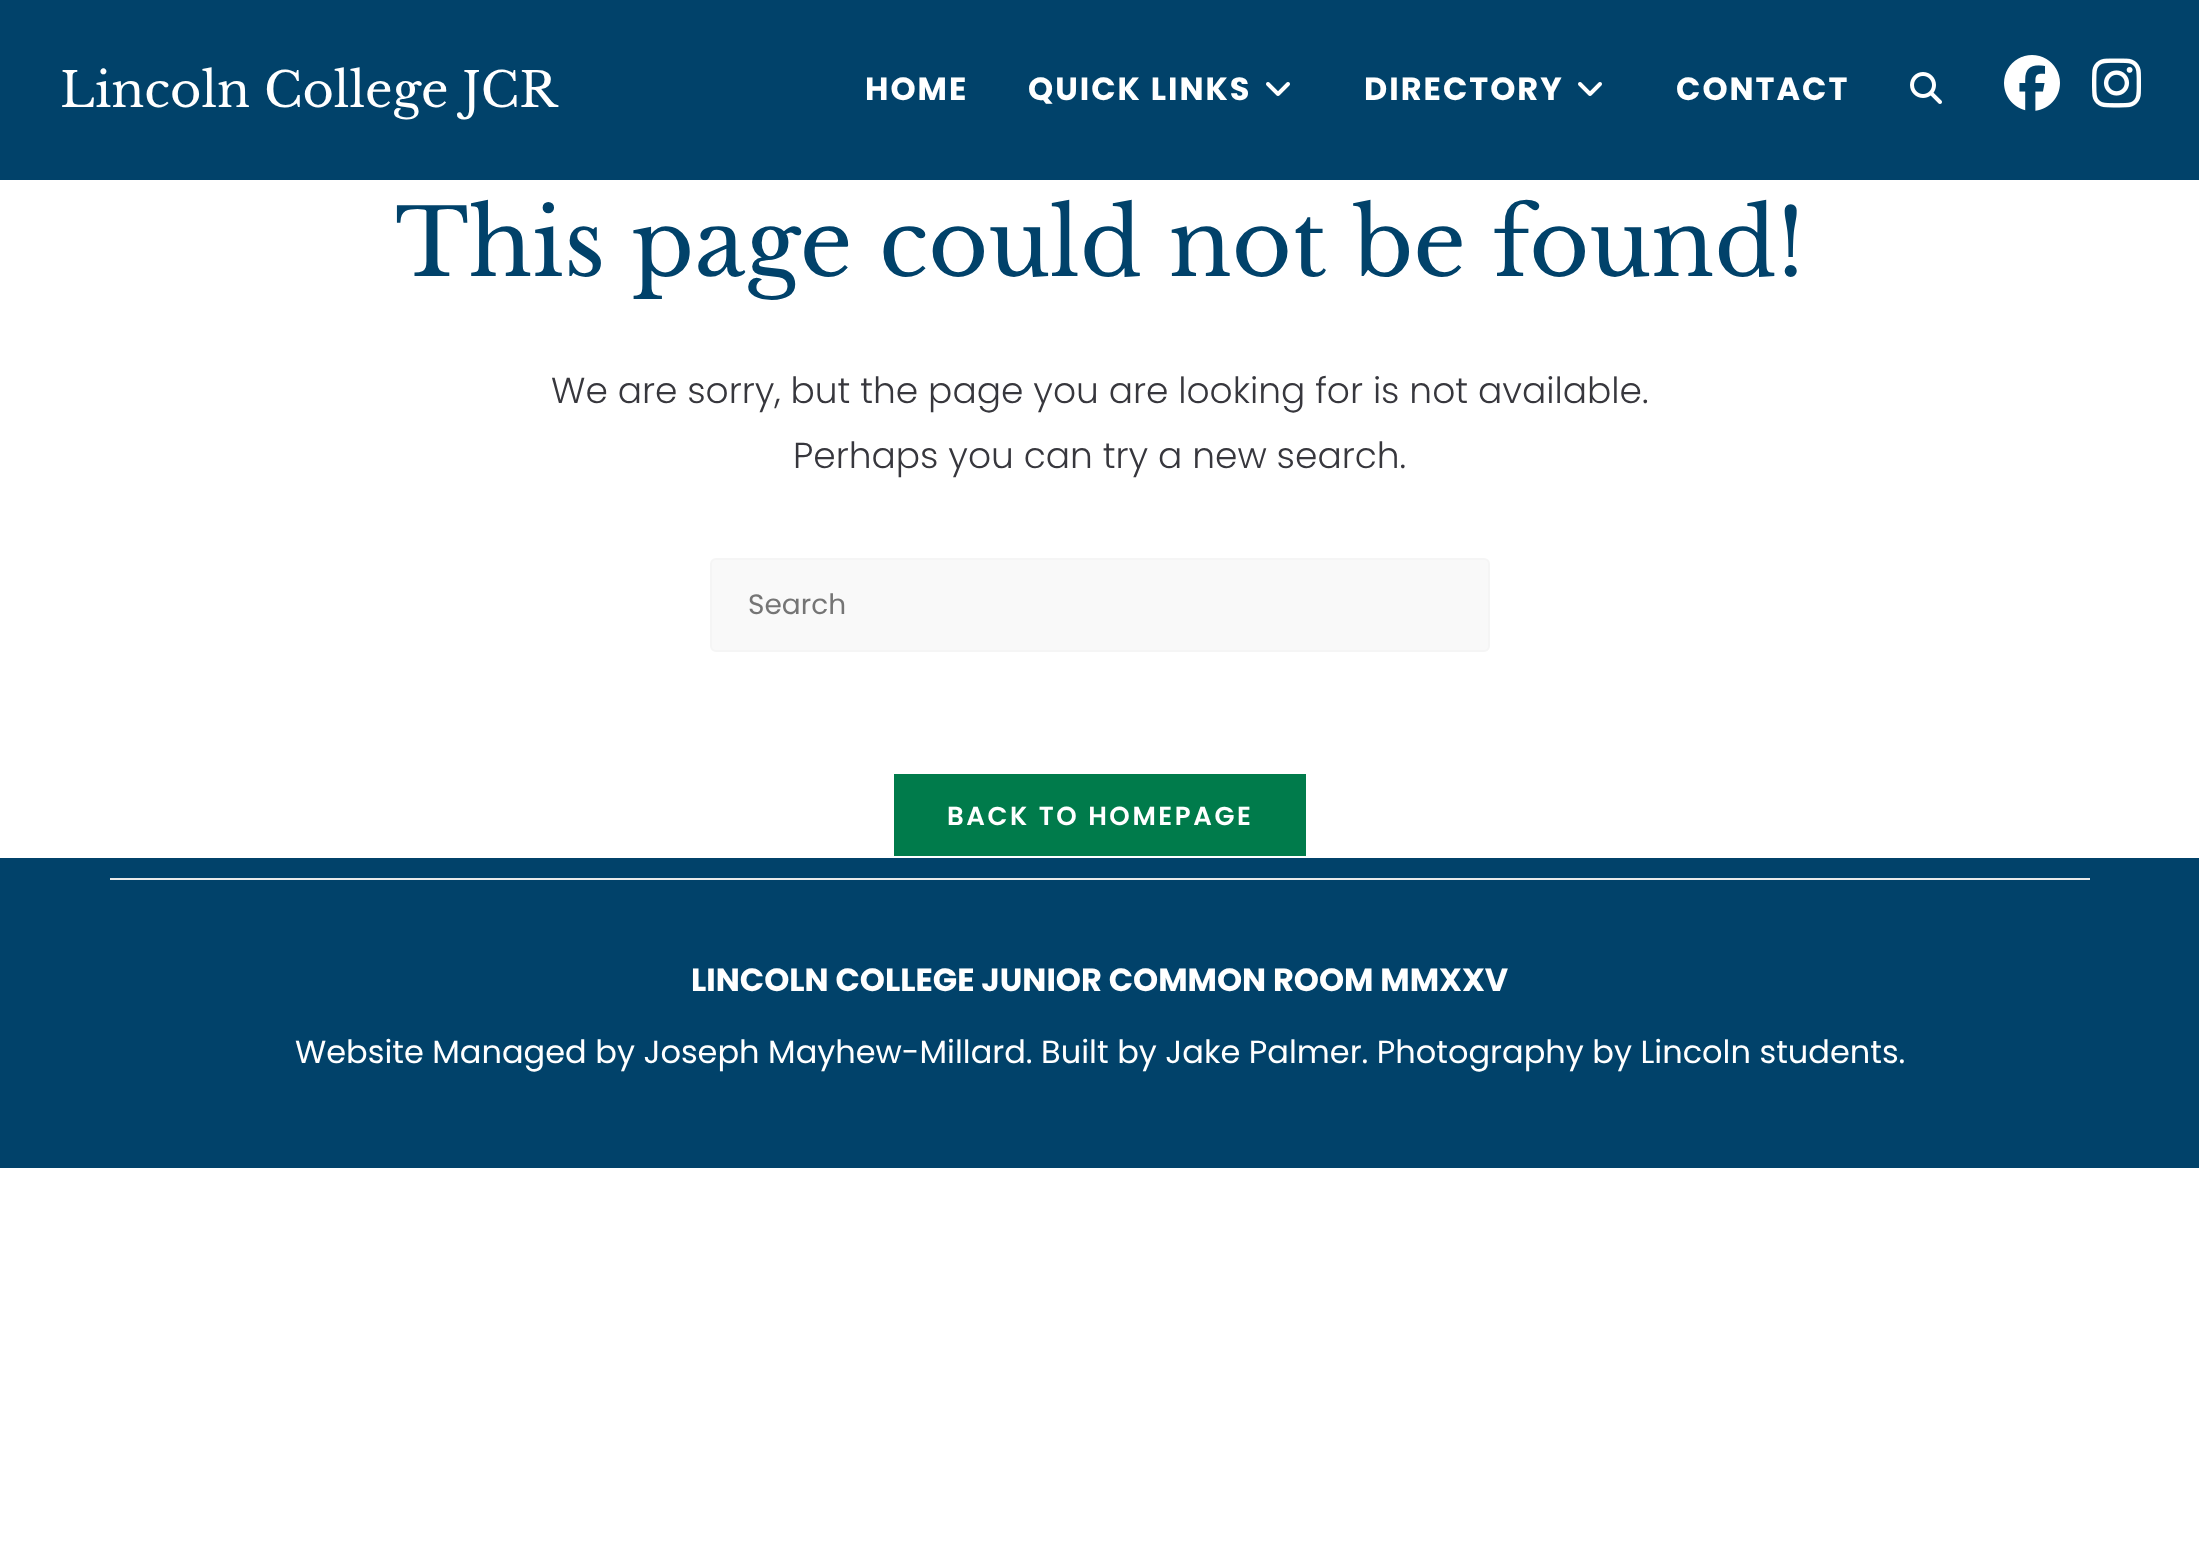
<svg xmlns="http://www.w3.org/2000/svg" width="2199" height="1554">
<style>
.a{font:48px Libre Baskerville;fill:#fff}
.b{font:bold 32px Poppins;letter-spacing:2px;fill:#fff}
.c{font:92px Libre Baskerville;fill:#01426a}
.d{font:300 36px Poppins;fill:#37373d}
.e{font:28px Poppins;fill:#757575}
.f{font:600 26px Poppins;letter-spacing:2.6px;fill:#fff}
.g{font:bold 32px Poppins;fill:#fff}
.h{font:32px Poppins;fill:#fff}
</style>
<rect width="100%" height="100%" fill="#fff"/>
<path fill="#01426a" d="M0 0h2199v180H0z"/>
<image href="1.png" x="1266" y="82" width="24" height="14"/>
<image href="1.png" x="1578" y="82" width="24" height="14"/>
<image href="2.png" x="1910" y="72" width="32" height="32"/>
<image href="3.png" x="2004" y="55" width="56" height="56"/>
<image href="4.png" x="2092" y="58" width="49" height="50"/>
<rect fill="#f9f9f9" stroke="#f5f5f5" stroke-width="2" x="711" y="559" width="778" height="92" rx="5"/>
<path fill="#007b4b" d="M894 774h412v82H894z"/>
<path fill="#01426a" d="M0 858h2199v310H0z"/>
<path fill="#eaeaea" d="M110 878h1980v2H110z"/>
<text class="a" x="60" y="107">Lincoln College JCR</text>
<text class="b" x="865" y="100">HOME</text>
<text class="b" x="1028" y="100">QUICK LINKS</text>
<text class="b" x="1364" y="100">DIRECTORY</text>
<text class="b" x="1676" y="100">CONTACT</text>
<text class="c" x="395" y="276">This page could not be found!</text>
<text class="d" x="551" y="403">We are sorry, but the page you are looking for is not available.</text>
<text class="d" x="793" y="468">Perhaps you can try a new search.</text>
<text class="e" x="748" y="614">Search</text>
<text class="f" x="947" y="825">BACK TO HOMEPAGE</text>
<text class="g" x="691" y="991">LINCOLN COLLEGE JUNIOR COMMON ROOM MMXXV</text>
<text class="h" x="295" y="1063">Website Managed by Joseph Mayhew-Millard. Built by Jake Palmer. Photography by Lincoln students.</text>
</svg>
